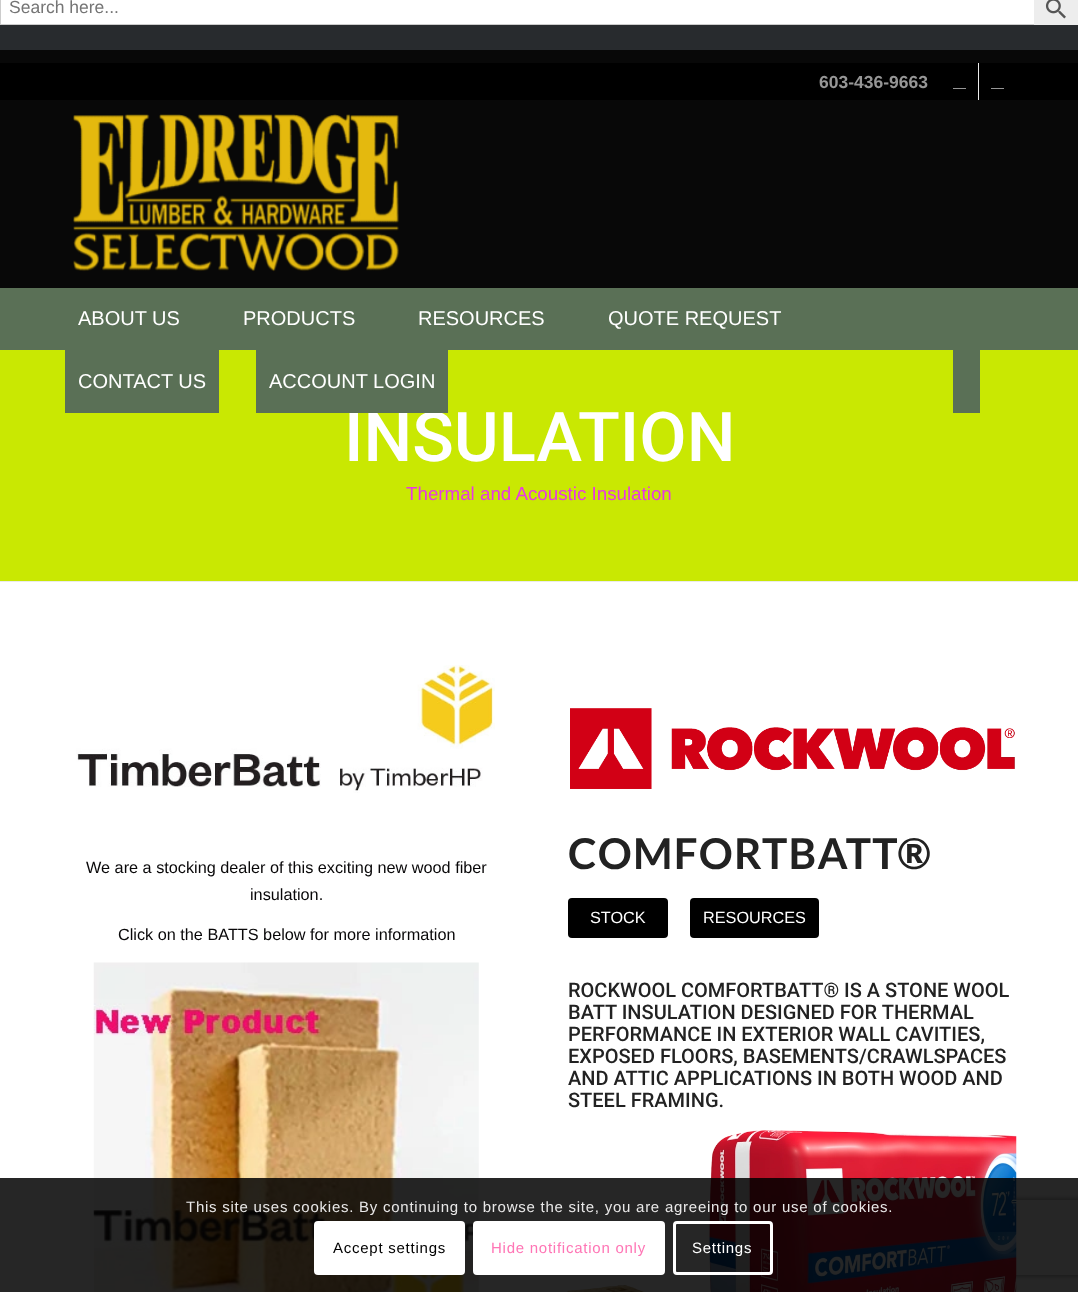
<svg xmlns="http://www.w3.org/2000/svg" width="1078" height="1292">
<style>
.a{font:17.5px Liberation Sans;fill:#757575}
.b{font:bold 17.5px Liberation Sans;fill:#969696}
.c{font:20px Liberation Sans;fill:#fff}
.d{font:500 68.75px Roboto;fill:#fff}
.e{font:18.75px Liberation Sans;fill:#e837e5}
.f{font:16.25px Liberation Sans;fill:#080708}
.g{font:bold 42.5px Lato;letter-spacing:1.25px;fill:#222}
.h{font:16.25px Liberation Sans;fill:#fff}
.i{font:500 20px Roboto;fill:#222}
.j{font:15px Liberation Sans;letter-spacing:0.75px;fill:#e9e8e8}
.k{font:15px Liberation Sans;letter-spacing:0.75px;fill:#000}
.l{font:15px Liberation Sans;letter-spacing:0.75px;fill:#ff75b5}
.m{font:15px Liberation Sans;letter-spacing:0.75px;fill:#fff}
</style>
<defs>
<clipPath id="clip1"><path d="M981 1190h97v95h-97zm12.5 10h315c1.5 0 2.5 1 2.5 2.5v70c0 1.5-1 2.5-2.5 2.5h-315c-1.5 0-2.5-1-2.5-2.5v-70c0-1.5 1-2.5 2.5-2.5z" clip-rule="evenodd"/></clipPath>
</defs>
<rect width="100%" height="100%" fill="#282b2e"/>
<path fill="#fff" d="M1 0h1033v24H1z"/>
<path fill="#ccc" d="M0 24h1034v1H0z"/>
<path fill="#ccc" d="M0 0h1v25H0z"/>
<path fill="#ededed" d="M1034 0h44v25H1034z"/>
<image href="1.png" x="1045" y="0" width="21" height="19"/>
<path fill="#080808" d="M0 50h1078v238H0z"/>
<path fill="#000" d="M0 63h1078v37H0z"/>
<path fill="#ebebeb" d="M978 63h1v37H978z"/>
<path fill="#969696" d="M953 88h13v1H953z"/>
<path fill="#969696" d="M991 88h13v1H991z"/>
<image href="2.png" x="73" y="114" width="326" height="158"/>
<path fill="#5a7056" d="M0 288h1078v62H0z"/>
<path fill="#c9e802" d="M0 350h1078v231H0z"/>
<path fill="#5a7056" d="M65 350h154v63H65z"/>
<path fill="#5a7056" d="M953 350h27v63H953z"/>
<path fill="#fff" d="M0 582h1078v710H0z"/>
<path fill="#ebebeb" d="M0 581h1078v1H0z"/>
<image href="3.png" x="76" y="665" width="419" height="128"/>
<image href="4.png" x="93" y="962" width="386" height="330"/>
<image href="5.png" x="570" y="708" width="445" height="81"/>
<rect fill="#000" x="568" y="898" width="100" height="40" rx="4"/>
<rect fill="#000" x="690" y="898" width="129" height="40" rx="4"/>
<path fill="#000" d="M817 936h1v1H817z"/>
<g clip-path="url(#clip1)">
<rect fill="#808080" filter="blur(3px)" x="991" y="1200" width="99" height="75" rx="2.5"/>
</g>
<image href="6.png" x="567" y="1130" width="450" height="162"/>
<path fill="#000000d9" d="M0 1178h1078v114H0z"/>
<rect fill="#fff" x="314" y="1221" width="151" height="54" rx="4"/>
<rect fill="#fff" stroke="#fff" stroke-width="3" x="474.5" y="1222.5" width="189" height="51" rx="2.5"/>
<rect fill="none" stroke="#fff" stroke-width="3" x="674.5" y="1222.5" width="97" height="51" rx="2.5"/>
<text class="a" x="9" y="13">Search here...</text>
<text class="b" x="819" y="88">603-436-9663</text>
<text class="c" x="78" y="325">ABOUT US</text>
<text class="c" x="243" y="325">PRODUCTS</text>
<text class="c" x="418" y="325">RESOURCES</text>
<text class="c" x="608" y="325">QUOTE REQUEST</text>
<text class="c" x="78" y="388">CONTACT US</text>
<text class="d" x="344" y="461">INSULATION</text>
<path fill="#5a7056" d="M256 350h192v63H256z"/>
<text class="c" x="269" y="388">ACCOUNT LOGIN</text>
<text class="e" x="406" y="500">Thermal and Acoustic Insulation</text>
<text class="f" x="86" y="873">We are a stocking dealer of this exciting new wood fiber</text>
<text class="f" x="250" y="900">insulation.</text>
<text class="f" x="118" y="940">Click on the BATTS below for more information</text>
<text class="g" x="568" y="869">COMFORTBATT®</text>
<text class="h" x="590" y="923">STOCK</text>
<text class="h" x="703" y="923">RESOURCES</text>
<text class="i" x="568" y="997">ROCKWOOL COMFORTBATT® IS A STONE WOOL</text>
<text class="i" x="568" y="1019">BATT INSULATION DESIGNED FOR THERMAL</text>
<text class="i" x="568" y="1041">PERFORMANCE IN EXTERIOR WALL CAVITIES,</text>
<text class="i" x="568" y="1063">EXPOSED FLOORS, BASEMENTS/CRAWLSPACES</text>
<text class="i" x="568" y="1085">AND ATTIC APPLICATIONS IN BOTH WOOD AND</text>
<text class="i" x="568" y="1107">STEEL FRAMING.</text>
<text class="j" x="186" y="1212">This site uses cookies. By continuing to browse the site, you are agreeing to our use of cookies.</text>
<text class="k" x="333" y="1253">Accept settings</text>
<text class="l" x="491" y="1253">Hide notification only</text>
<text class="m" x="692" y="1253">Settings</text>
</svg>
